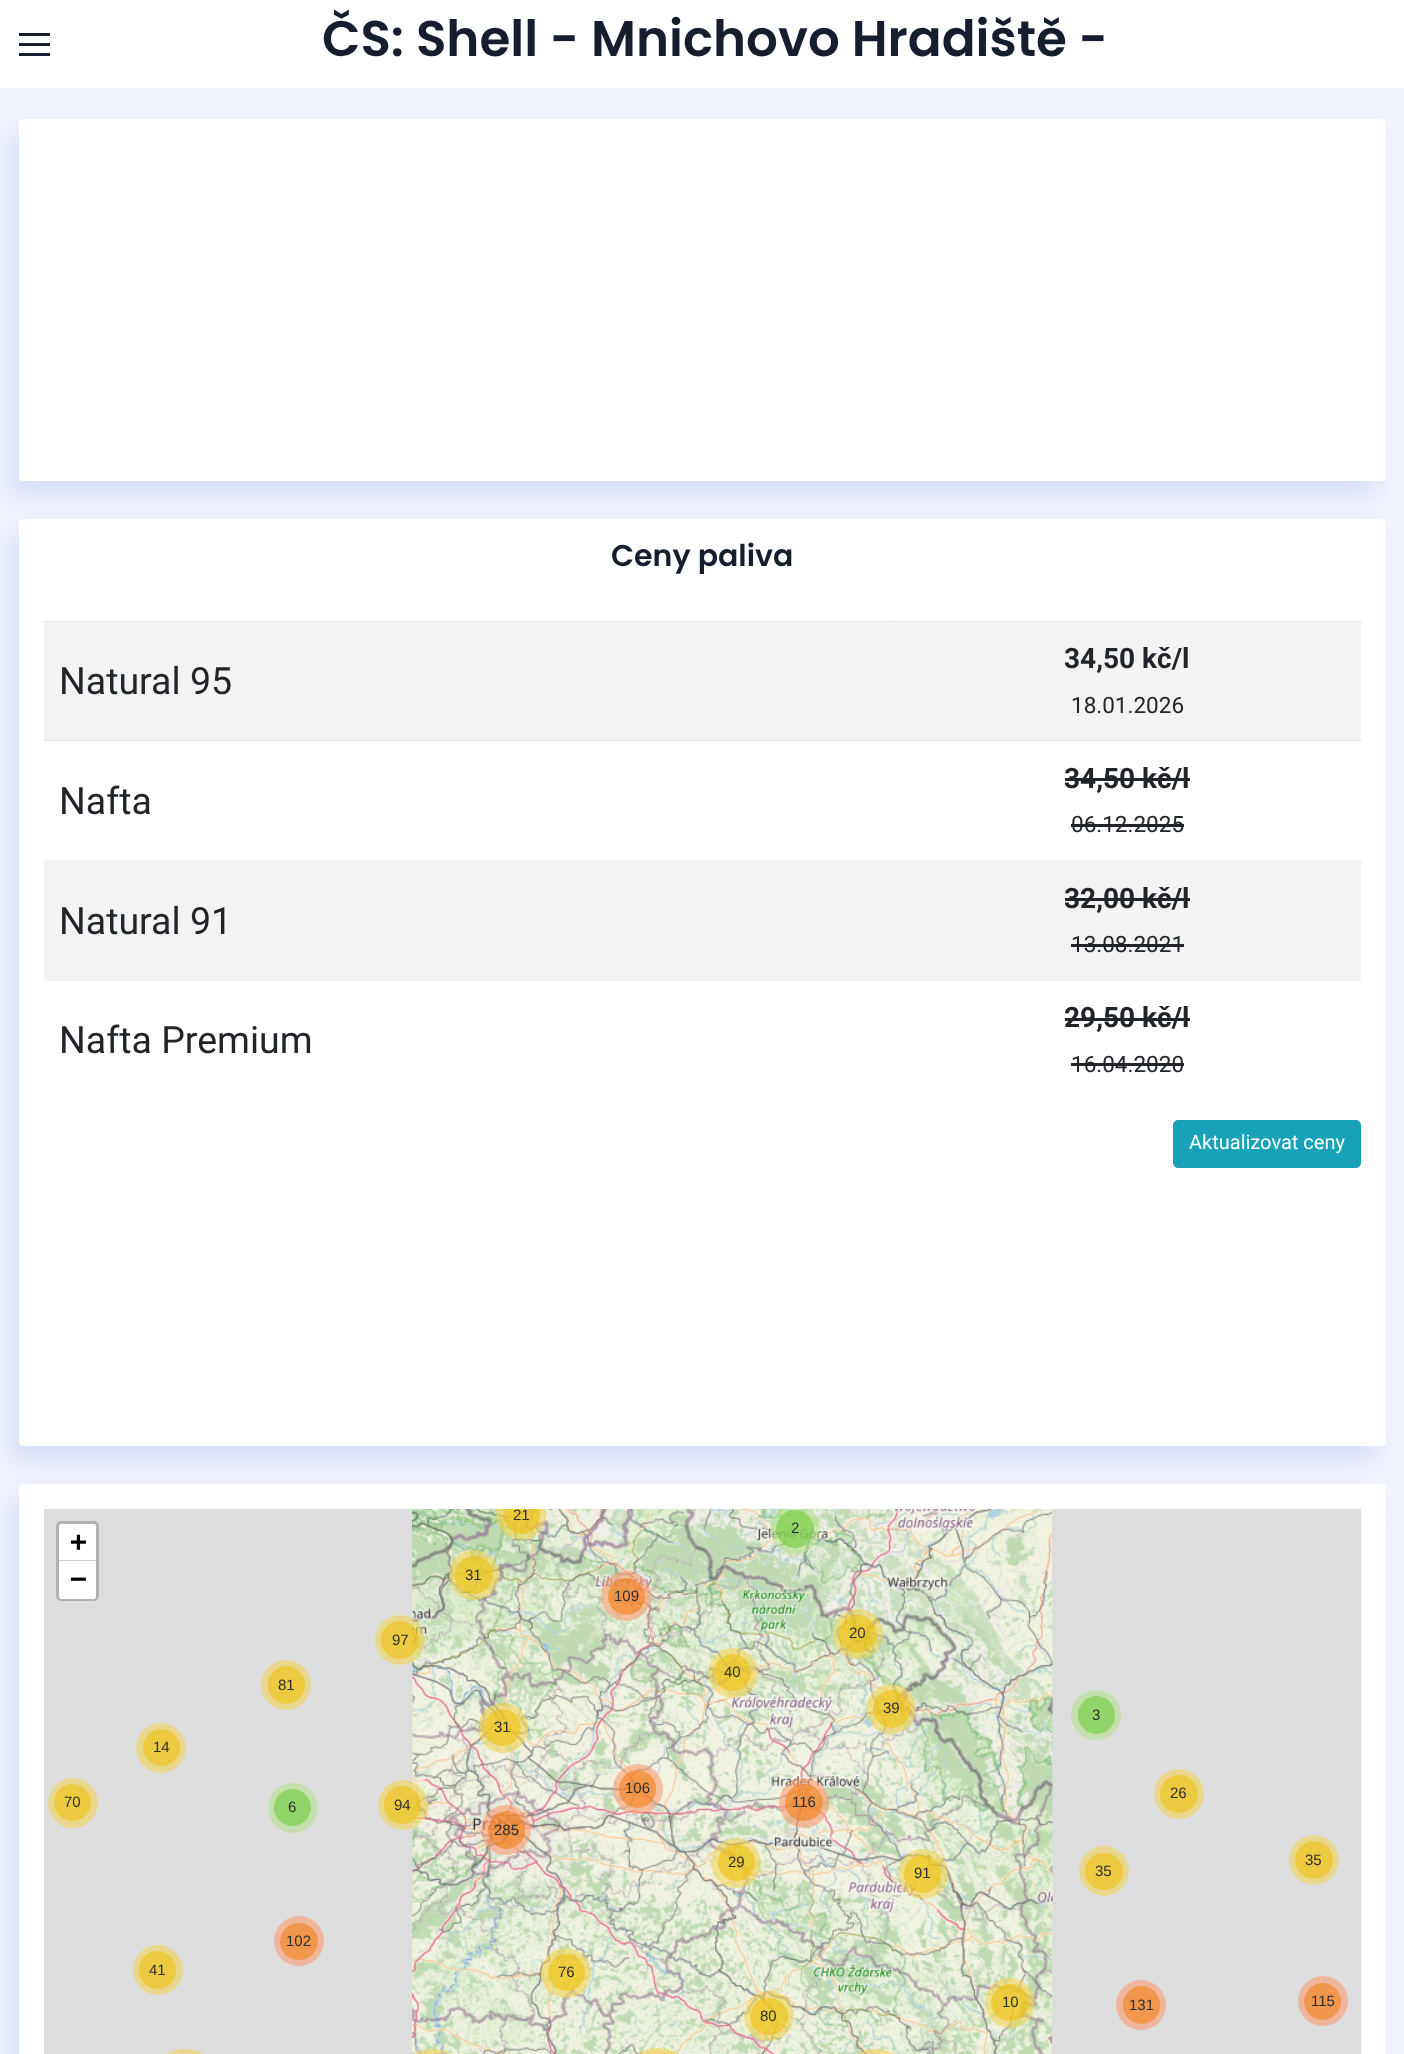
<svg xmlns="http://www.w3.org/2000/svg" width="1404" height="2054">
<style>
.a{font:600 50px Poppins;fill:#151d2e}
.b{font:600 30px Poppins;fill:#151d2e}
.c{font:37.5px Roboto;fill:#212529}
.d{font:bold 28px Roboto;fill:#212529}
.e{font:22.5px Roboto;fill:#212529}
.f{font:20px Roboto;fill:#fff}
.g{font:15px Liberation Sans;fill:#2d2e2e}
.h{font:bold 28px DejaVu Sans Mono;fill:#000}
</style>
<defs>
<clipPath id="clip1"><path d="M44 1509h1317v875H44z"/></clipPath>
</defs>
<rect width="100%" height="100%" fill="#f1f3fd"/>
<path fill="#fff" d="M0 0h1404v88H0z"/>
<path fill="#151d2e" d="M19 33h31v3H19z"/>
<path fill="#151d2e" d="M19 53h31v3H19z"/>
<path fill="#151d2e" d="M19 43h31v3H19z"/>
<rect fill="#d1daf9cc" filter="blur(11px)" x="9" y="134" width="1367" height="362" rx="4"/>
<rect fill="#fff" x="19" y="119" width="1367" height="362" rx="4"/>
<rect fill="#d1daf9cc" filter="blur(11px)" x="9" y="534" width="1367" height="927" rx="4"/>
<rect fill="#fff" x="19" y="519" width="1367" height="927" rx="4"/>
<path fill="#f3f2f4" d="M1361 621h2v1H1361z"/>
<path fill="#f3f2f4" d="M1361 740h2v1H1361z"/>
<path fill="#f3f2f4" d="M44 860h850v1H44z"/>
<path fill="#f3f2f4" d="M44 980h850v1H44z"/>
<path fill="#f3f3f3" d="M44 622h1317v118H44z"/>
<path fill="#e8e6e9" d="M44 621h1317v1H44z"/>
<path fill="#dedae0" d="M893 621h1v1H893z"/>
<path fill="#e8e6e9" d="M44 740h1317v1H44z"/>
<path fill="#dedae0" d="M893 740h1v1H893z"/>
<path fill="#212529" d="M1065 778h125v3H1065z"/>
<path fill="#212529" d="M1071 824h113v3H1071z"/>
<path fill="#f3f3f3" d="M44 861h1317v119H44z"/>
<path fill="#f3f2f5" d="M893 860h470v1H893z"/>
<path fill="#e8e5eb" d="M893 860h1v1H893z"/>
<path fill="#212529" d="M1065 898h125v3H1065z"/>
<path fill="#212529" d="M1071 944h113v3H1071z"/>
<path fill="#f3f2f5" d="M893 980h470v1H893z"/>
<path fill="#e8e5eb" d="M893 980h1v1H893z"/>
<path fill="#212529" d="M1065 1018h125v3H1065z"/>
<path fill="#212529" d="M1071 1063h113v3H1071z"/>
<rect fill="#17a2b8" stroke="#17a2b8" x="1173.5" y="1120.5" width="187" height="47" rx="4.5"/>
<rect fill="#d1daf9cc" filter="blur(11px)" x="9" y="1499" width="1367" height="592" rx="4"/>
<rect fill="#fff" x="19" y="1484" width="1367" height="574" rx="4"/>
<path fill="#ddd" d="M44 1509h1317v545H44z"/>
<image href="1.png" x="412" y="1509" width="320" height="84"/>
<g clip-path="url(#clip1)">
<circle fill="#f1d35799" cx="521" cy="1515" r="25"/>
<rect fill="#f0c20c99" x="503" y="1496" width="37" height="38" rx="18.5"/>
</g>
<image href="3.png" x="412" y="1593" width="321" height="320"/>
<image href="4.png" x="732" y="1592" width="321" height="321"/>
<image href="2.png" x="732" y="1509" width="320" height="84"/>
<g clip-path="url(#clip1)">
<circle fill="#b5e28c99" cx="795" cy="1529" r="25"/>
</g>
<circle fill="#6ecc3999" cx="795" cy="1529" r="19"/>
<circle fill="#f1d35799" cx="474" cy="1575" r="25"/>
<circle fill="#f0c20c99" cx="474" cy="1575" r="19"/>
<circle fill="#fd9c7399" cx="626" cy="1596" r="25"/>
<circle fill="#f1801799" cx="626.5" cy="1596.5" r="18.5"/>
<circle fill="#f1d35799" cx="400" cy="1640" r="25"/>
<circle fill="#f0c20c99" cx="400" cy="1640" r="19"/>
<circle fill="#f1d35799" cx="858" cy="1634" r="25"/>
<rect fill="#f0c20c99" x="839" y="1615" width="37" height="38" rx="18.5"/>
<circle fill="#f1d35799" cx="733" cy="1673" r="25"/>
<circle fill="#f0c20c99" cx="732.5" cy="1672.5" r="18.5"/>
<circle fill="#e9d78d" cx="286" cy="1685" r="25"/>
<rect fill="#edca40" x="268" y="1666" width="37" height="38" rx="18.5"/>
<circle fill="#f1d35799" cx="891" cy="1709" r="25"/>
<rect fill="#f0c20c99" x="873" y="1690" width="37" height="38" rx="18.5"/>
<circle fill="#c5e0ac" cx="1096" cy="1715" r="25"/>
<rect fill="#91d467" x="1078" y="1696" width="37" height="38" rx="18.5"/>
<circle fill="#f1d35799" cx="503" cy="1728" r="25"/>
<circle fill="#f0c20c99" cx="502.5" cy="1727.5" r="18.5"/>
<circle fill="#e9d78d" cx="161" cy="1748" r="25"/>
<circle fill="#edca40" cx="161.5" cy="1747.5" r="18.5"/>
<circle fill="#fd9c7399" cx="638" cy="1789" r="25"/>
<rect fill="#f1801799" x="619" y="1770" width="37" height="38" rx="18.5"/>
<circle fill="#e9d78d" cx="1179" cy="1794" r="25"/>
<circle fill="#edca40" cx="1179" cy="1794" r="19"/>
<circle fill="#e9d78d" cx="73" cy="1803" r="25"/>
<circle fill="#edca40" cx="72.5" cy="1802.5" r="18.5"/>
<circle fill="#c5e0ac" cx="293" cy="1808" r="25"/>
<circle fill="#91d467" cx="292.5" cy="1807.5" r="18.5"/>
<circle fill="#f1d35799" cx="403" cy="1805" r="25"/>
<rect fill="#f0c20c99" x="384" y="1786" width="37" height="38" rx="18.5"/>
<circle fill="#fd9c7399" cx="804" cy="1803" r="25"/>
<rect fill="#f1801799" x="785" y="1784" width="38" height="37" rx="18.5"/>
<circle fill="#fd9c7399" cx="506" cy="1830" r="25"/>
<rect fill="#f1801799" x="488" y="1811" width="37" height="38" rx="18.5"/>
<circle fill="#f1d35799" cx="736" cy="1863" r="25"/>
<circle fill="#f0c20c99" cx="736.5" cy="1862.5" r="18.5"/>
<circle fill="#e9d78d" cx="1314" cy="1860" r="25"/>
<circle fill="#edca40" cx="1314" cy="1860" r="19"/>
<circle fill="#f1d35799" cx="923" cy="1874" r="25"/>
<rect fill="#f0c20c99" x="904" y="1855" width="37" height="38" rx="18.5"/>
<circle fill="#e9d78d" cx="1104" cy="1871" r="25"/>
<rect fill="#edca40" x="1085" y="1853" width="38" height="37" rx="18.5"/>
<circle fill="#f0b69d" cx="299" cy="1941" r="25"/>
<rect fill="#f1964d" x="280" y="1923" width="38" height="37" rx="18.5"/>
<circle fill="#e9d78d" cx="158" cy="1970" r="25"/>
<rect fill="#edca40" x="139" y="1951" width="37" height="38" rx="18.5"/>
<image href="5.png" x="412" y="1912" width="320" height="142"/>
<circle fill="#f1d35799" cx="566" cy="1973" r="25"/>
<circle fill="#f0c20c99" cx="566.5" cy="1972.5" r="18.5"/>
<image href="6.png" x="732" y="1912" width="320" height="142"/>
<circle fill="#f1d35799" cx="1010" cy="2003" r="25"/>
<rect fill="#f0c20c99" x="991" y="1984" width="38" height="37" rx="18.5"/>
<circle fill="#f0b69d" cx="1141" cy="2005" r="25"/>
<rect fill="#f1964d" x="1123" y="1986" width="37" height="38" rx="18.5"/>
<circle fill="#f0b69d" cx="1323" cy="2001" r="25"/>
<circle fill="#f1964d" cx="1322.5" cy="2001.5" r="18.5"/>
<circle fill="#f1d35799" cx="769" cy="2016" r="25"/>
<rect fill="#f0c20c99" x="750" y="1998" width="38" height="37" rx="18.5"/>
<rect fill="#e9d78d" x="160" y="2049" width="50" height="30" rx="25"/>
<rect fill="#f1d35799" x="408" y="2049" width="50" height="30" rx="25"/>
<rect fill="#f1d35799" x="633" y="2048" width="50" height="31" rx="25"/>
<rect fill="#f1d35799" x="851" y="2049" width="50" height="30" rx="25"/>
<rect fill="none" stroke="#b1b1b1" stroke-width="3" x="57.5" y="1522.5" width="40" height="77" rx="3.5"/>
<path fill="#fff" d="M61.5 1524h32c1.5 0 2.5 1 2.5 2.5v34.5h-37v-34.5c0-1.5 1-2.5 2.5-2.5z"/>
<path fill="#ccc" d="M59 1560h37v1H59z"/>
<path fill="#fff" d="M59 1561h37v35.5c0 1.5-1 2.5-2.5 2.5h-32c-1.5 0-2.5-1-2.5-2.5z"/>
<text class="a" x="322" y="56">ČS: Shell - Mnichovo Hradiště -</text>
<text class="b" x="611" y="566">Ceny paliva</text>
<text class="c" x="59" y="694">Natural 95</text>
<text class="d" x="1064" y="668">34,50 kč/l</text>
<text class="e" x="1071" y="713">18.01.2026</text>
<text class="c" x="59" y="814">Nafta</text>
<text class="d" x="1064" y="788">34,50 kč/l</text>
<text class="e" x="1071" y="832">06.12.2025</text>
<text class="c" x="59" y="934">Natural 91</text>
<text class="d" x="1064" y="908">32,00 kč/l</text>
<text class="e" x="1071" y="952">13.08.2021</text>
<text class="c" x="59" y="1053">Nafta Premium</text>
<text class="d" x="1064" y="1027">29,50 kč/l</text>
<text class="e" x="1071" y="1072">16.04.2020</text>
<text class="f" x="1189" y="1149">Aktualizovat ceny</text>
<text class="g" x="513" y="1520">21</text>
<text class="g" x="791" y="1533">2</text>
<text class="g" x="465" y="1580">31</text>
<text class="g" x="614" y="1601">109</text>
<text class="g" x="392" y="1645">97</text>
<text class="g" x="849" y="1638">20</text>
<text class="g" x="724" y="1677">40</text>
<text class="g" x="278" y="1690">81</text>
<text class="g" x="883" y="1713">39</text>
<text class="g" x="1092" y="1720">3</text>
<text class="g" x="494" y="1732">31</text>
<text class="g" x="153" y="1752">14</text>
<text class="g" x="625" y="1793">106</text>
<text class="g" x="1170" y="1798">26</text>
<text class="g" x="64" y="1807">70</text>
<text class="g" x="288" y="1812">6</text>
<text class="g" x="394" y="1810">94</text>
<text class="g" x="792" y="1807">116</text>
<text class="g" x="494" y="1835">285</text>
<text class="g" x="728" y="1867">29</text>
<text class="g" x="1305" y="1865">35</text>
<text class="g" x="914" y="1878">91</text>
<text class="g" x="1095" y="1876">35</text>
<text class="g" x="286" y="1946">102</text>
<text class="g" x="149" y="1975">41</text>
<text class="g" x="558" y="1977">76</text>
<text class="g" x="1002" y="2007">10</text>
<text class="g" x="1129" y="2010">131</text>
<text class="g" x="1311" y="2006">115</text>
<text class="g" x="760" y="2021">80</text>
<text class="h" x="70" y="1551">+</text>
<text class="h" x="70" y="1588">−</text>
</svg>
